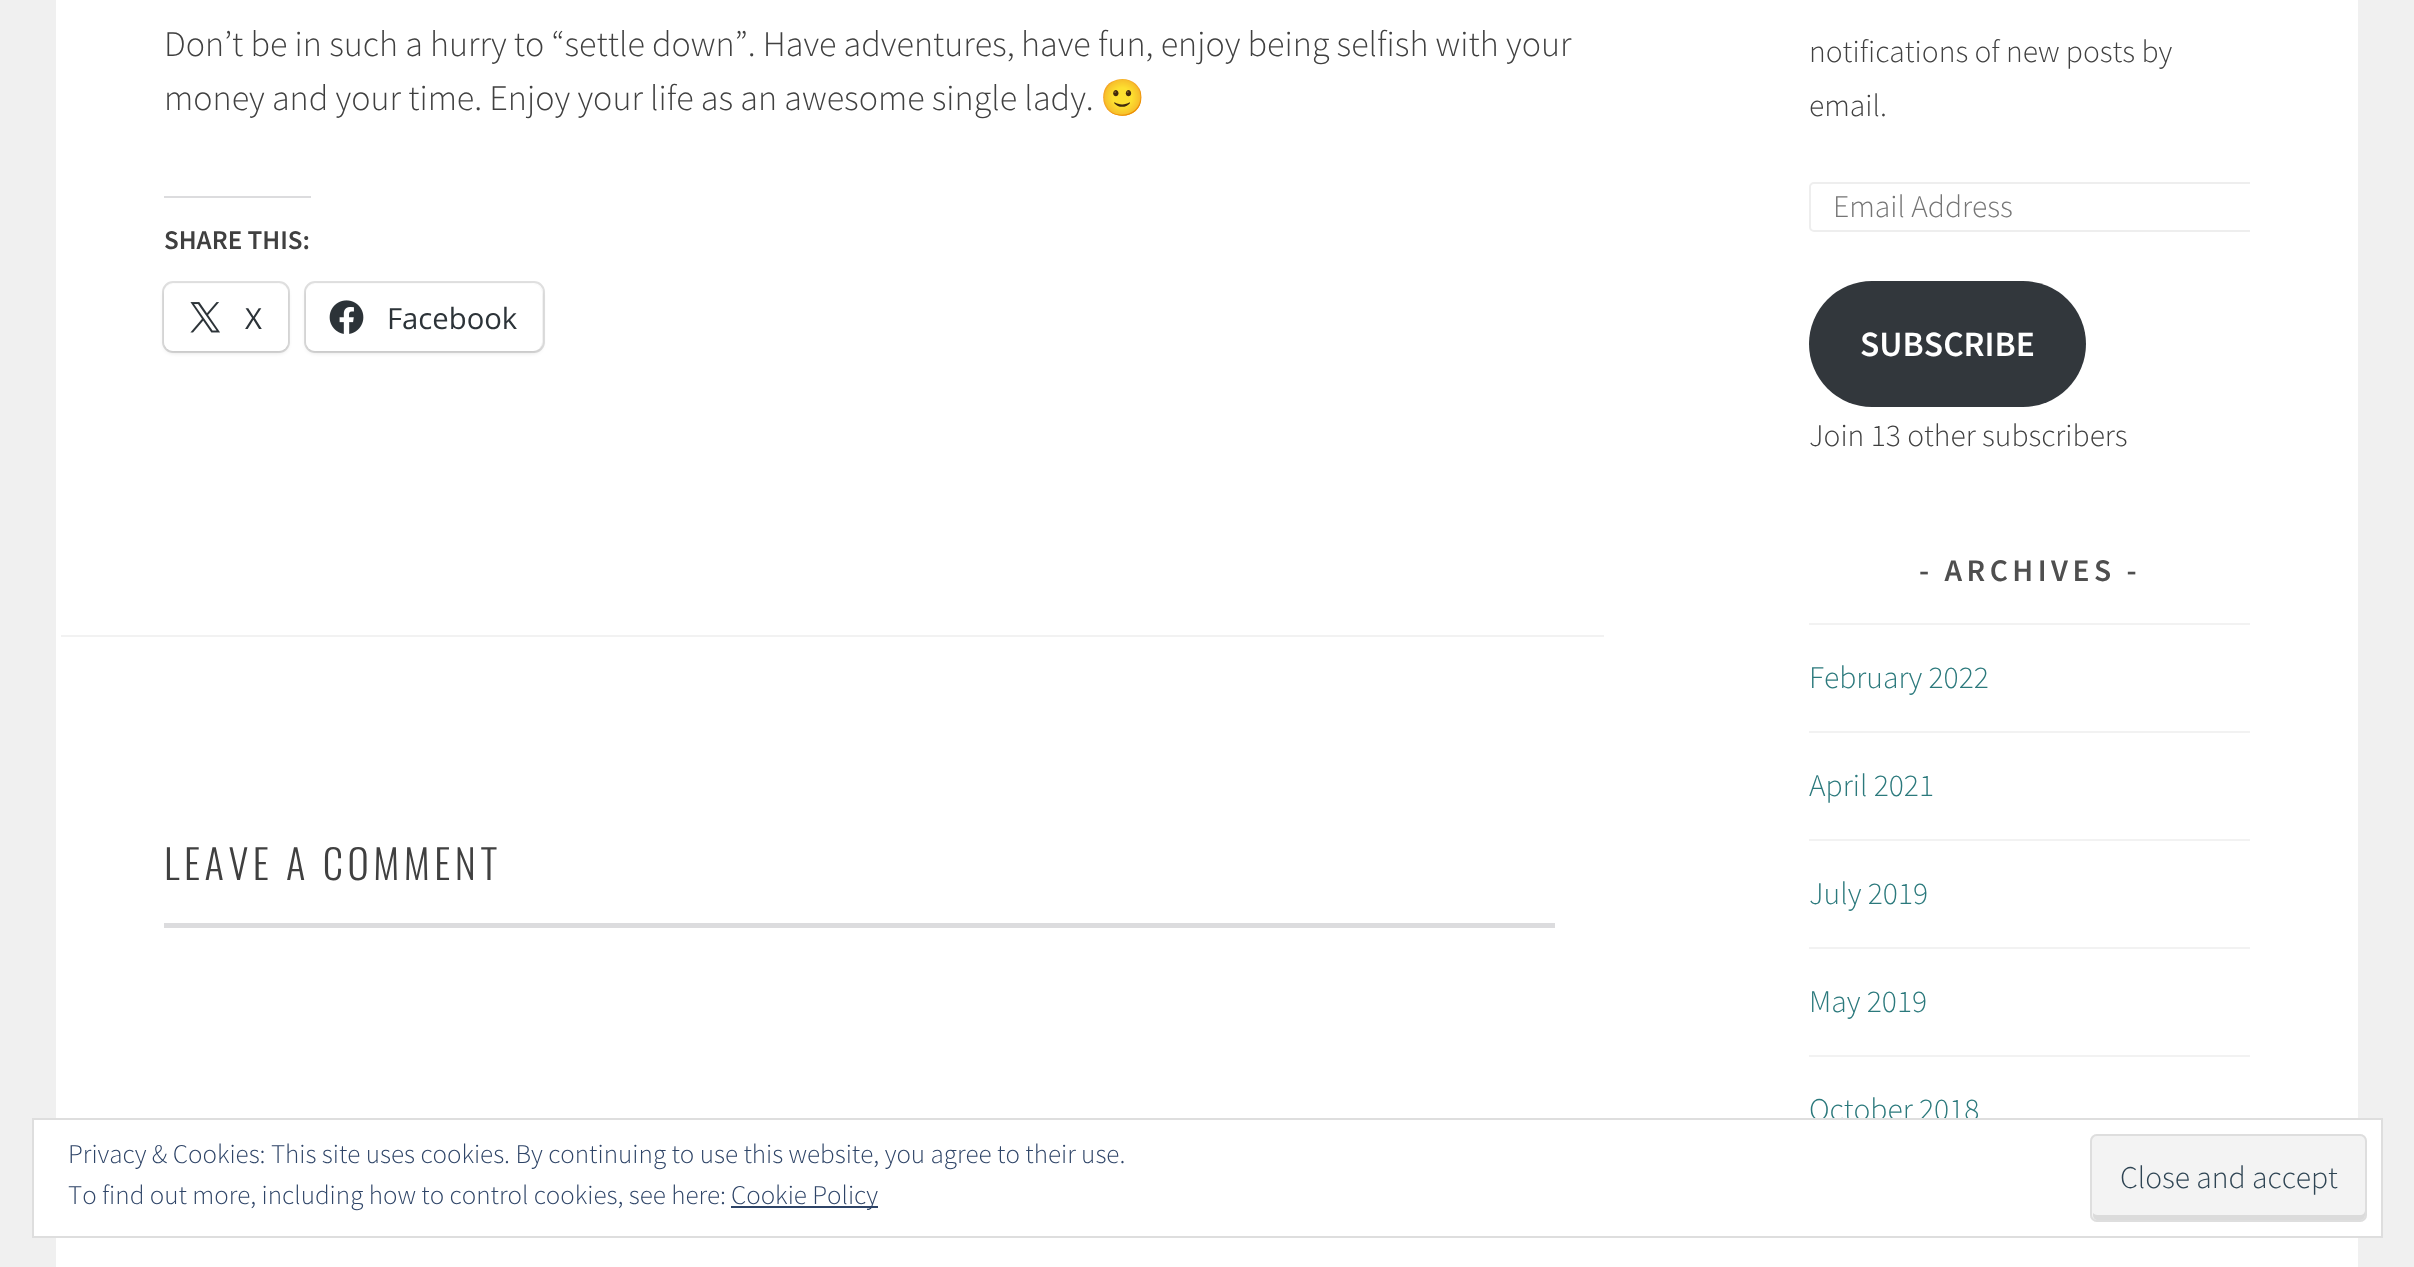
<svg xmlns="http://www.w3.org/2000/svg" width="2414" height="1267">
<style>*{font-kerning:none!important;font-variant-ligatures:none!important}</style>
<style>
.a{font:300 36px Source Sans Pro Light;fill:#404040}
.b{font:36px Noto Color Emoji;fill:#404040}
.c{font:600 27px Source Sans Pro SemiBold;fill:#404040}
.d{font:29.25px Open Sans;fill:#2c3338}
.e{font:300 40.5px Oswald;letter-spacing:4.5px;fill:#404040}
.f{font:300 31.5px Source Sans Pro Light;fill:#404040}
.g{font:300 31.5px Source Sans Pro Light;fill:#757575}
.h{font:600 35.5px Source Sans Pro SemiBold;fill:#fff}
.i{font:600 31.5px Source Sans Pro SemiBold;letter-spacing:4.5px;fill:#4f4f4f}
.j{font:300 31.5px Source Sans Pro Light;fill:#2b797c}
.k{font:300 27px Source Sans Pro Light;fill:#2e4467}
.l{font:300 31.5px Source Sans Pro Light;fill:#2e4453}
</style>
<defs>
<clipPath id="clip1"><path d="M1809 0h441v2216H1809z"/></clipPath>
</defs>
<rect width="100%" height="100%" fill="#f0f0f0"/>
<path fill="#fff" d="M56 0h2302v1267H56z"/>
<path fill="#dcdcde" d="M164 196h147v2H164z"/>
<rect fill="none" stroke="#e0e0e0" stroke-width="2" x="163" y="282" width="126" height="70" rx="10"/>
<rect fill="#0000001f" filter="blur(2px)" x="164" y="286" width="124" height="67" rx="9"/>
<rect fill="#fff" x="164" y="284" width="124" height="67" rx="9"/>
<image href="1.png" x="190" y="302" width="30" height="31"/>
<rect fill="none" stroke="#e0e0e0" stroke-width="2" x="305" y="282" width="239" height="70" rx="10"/>
<rect fill="#0000001f" filter="blur(2px)" x="306" y="286" width="236" height="67" rx="9"/>
<rect fill="#fff" x="306" y="284" width="236" height="67" rx="9"/>
<image href="2.png" x="329" y="300" width="35" height="34"/>
<path fill="#f2f2f2" d="M61 635h1543v2H61z"/>
<path fill="#dcdcde" d="M164 923h1391v5H164z"/>
<g clip-path="url(#clip1)">
<rect fill="none" stroke="#eee" stroke-width="2" x="1810" y="183" width="468" height="48" rx="4"/>
</g>
<rect fill="#32373c" x="1809" y="281" width="277" height="126" rx="63"/>
<path fill="#f2f2f2" d="M1809 623h441v2H1809z"/>
<path fill="#f2f2f2" d="M1809 731h441v2H1809z"/>
<path fill="#f2f2f2" d="M1809 839h441v2H1809z"/>
<path fill="#f2f2f2" d="M1809 947h441v2H1809z"/>
<path fill="#f2f2f2" d="M1809 1055h441v2H1809z"/>
<text class="a" x="164" y="56">Don’t be in such a hurry to “settle down”. Have adventures,</text>
<text class="a" x="1021" y="56">have fun, enjoy being selfish with your</text>
<text class="a" x="164" y="110">money and your time. Enjoy your life as an awesome single lady.</text>
<text class="b" x="1100" y="110">🙂</text>
<text class="c" x="164" y="249">SHARE THIS:</text>
<text class="d" x="245" y="329">X</text>
<text class="d" x="387" y="329">Facebook</text>
<text class="e" x="164" y="880">LEAVE A COMMENT</text>
<text class="f" x="1809" y="62">notifications of new posts by</text>
<text class="f" x="1809" y="116">email.</text>
<text class="g" x="1833" y="217">Email Address</text>
<text class="h" x="1860" y="356">SUBSCRIBE</text>
<text class="f" x="1809" y="446">Join 13 other subscribers</text>
<text class="i" x="1919" y="581">- ARCHIVES -</text>
<text class="j" x="1809" y="688">February 2022</text>
<text class="j" x="1809" y="796">April 2021</text>
<text class="j" x="1809" y="904">July 2019</text>
<text class="j" x="1809" y="1012">May 2019</text>
<text class="j" x="1809" y="1120">October 2018</text>
<path fill="#fff" stroke="#dedede" stroke-width="2" d="M33 1119h2349v118H33z"/>
<text class="k" x="68" y="1163">Privacy &amp; Cookies: This site uses cookies. By continuing to use this website, you agree to their use.</text>
<text class="k" x="68" y="1204">To find out more, including how to control cookies, see here:</text>
<path fill="#2e4467" d="M731 1206h147v2H731z"/>
<text class="k" x="731" y="1204">Cookie Policy</text>
<rect fill="#f3f3f3" x="2090" y="1134" width="277" height="88" rx="7"/>
<path fill="#dbdbdb" d="M2093 1213v2c0 3 2 5 5 5h262c3 0 5-2 5-5v-5c0 3-2 5-5 5h-263c-1 0-3-1-4-2z"/>
<rect fill="none" stroke="#dedede" stroke-width="2" x="2091" y="1135" width="275" height="86" rx="6"/>
<text class="l" x="2120" y="1188">Close and accept</text>
</svg>
